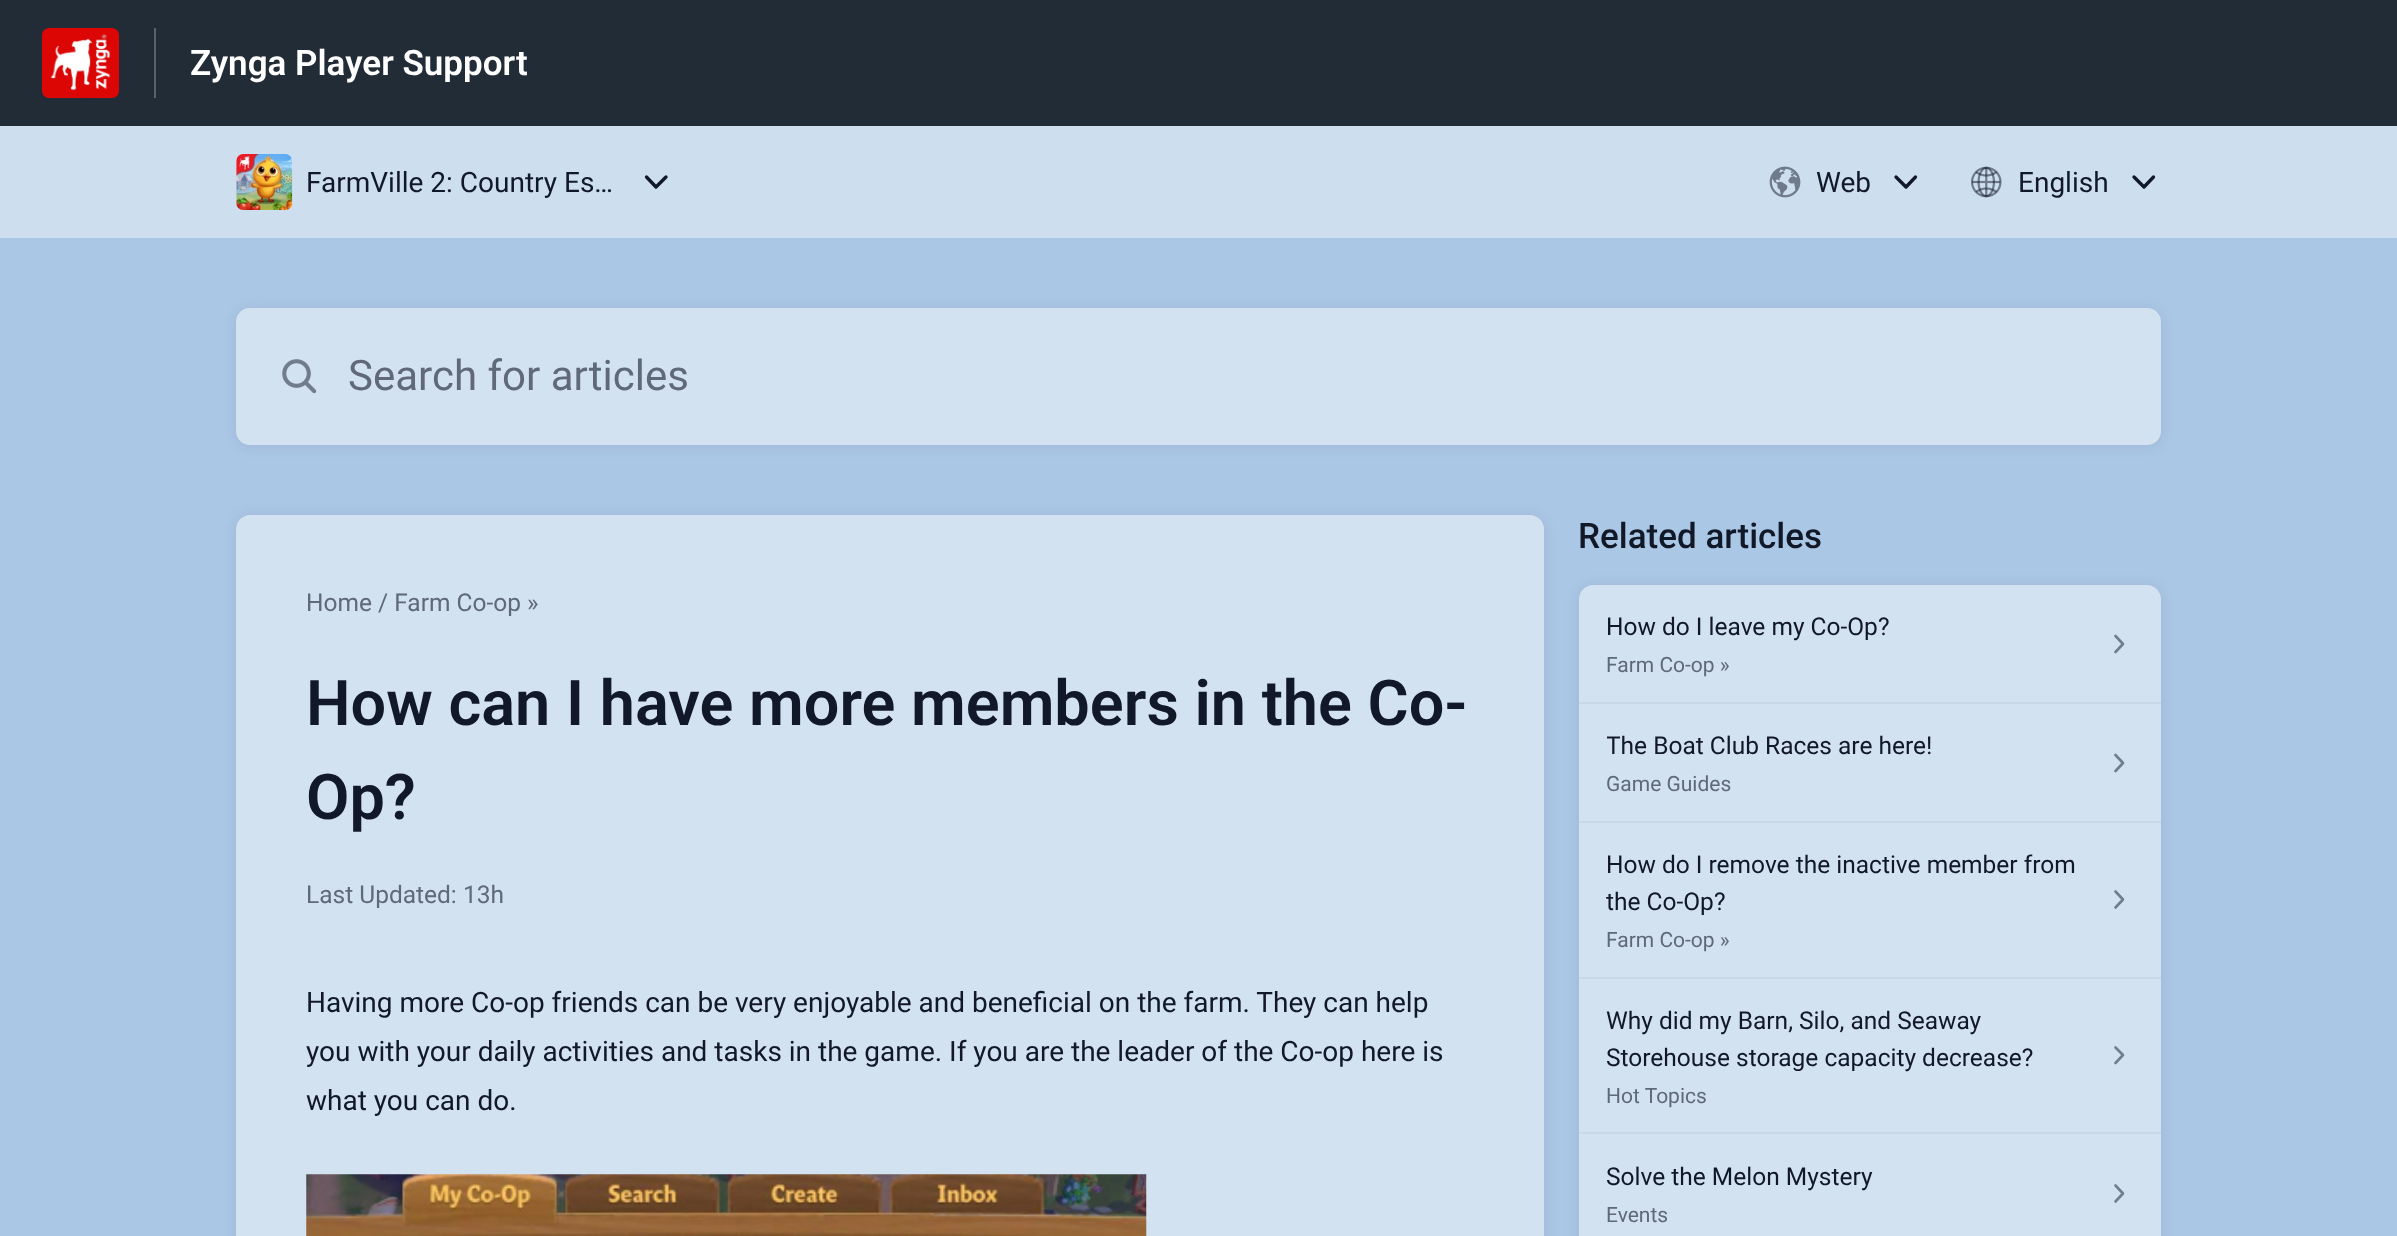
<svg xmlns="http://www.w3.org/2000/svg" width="2397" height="1236">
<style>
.a{font:600 35px Roboto;fill:#fff}
.b{font:28px Roboto;fill:#111827}
.c{font:42px Roboto;fill:#5f6978}
.d{font:24.5px Roboto;fill:#5f6978}
.e{font:600 63px Roboto;fill:#111827}
.f{font:500 35px Roboto;fill:#111827}
.g{font:24.5px Roboto;fill:#111827}
.h{font:21px Roboto;fill:#5f6978}
</style>
<defs>
<clipPath id="clip1"><path d="M1607 728h325v44H1607z"/></clipPath>
</defs>
<rect width="100%" height="100%" fill="#cddeef"/>
<path fill="#222c37" d="M0 0h2397v126H0z"/>
<path fill="#596169" d="M154 28h2v70H154z"/>
<image href="1.png" x="42" y="28" width="77" height="70"/>
<image href="2.png" x="236" y="154" width="57" height="56"/>
<path fill="none" stroke="#111827" stroke-width="3.3" stroke-linecap="round" stroke-linejoin="round" d="M646.5 177l9.5 10l10-10"/>
<image href="3.png" x="1769" y="166" width="32" height="32"/>
<path fill="none" stroke="#111827" stroke-width="3.3" stroke-linecap="round" stroke-linejoin="round" d="M1896 177l10 10l9.5-10"/>
<image href="4.png" x="1971" y="166" width="31" height="32"/>
<path fill="none" stroke="#111827" stroke-width="3.3" stroke-linecap="round" stroke-linejoin="round" d="M2134 177l10 10l9.5-10"/>
<path fill="#abc7e6" d="M0 238h2397v998H0z"/>
<rect fill="#00000014" filter="blur(7px)" x="236" y="310" width="1925" height="136" rx="14"/>
<rect fill="#d3e2f1" x="236" y="308" width="1925" height="137" rx="14"/>
<image href="5.png" x="282" y="359" width="35" height="35"/>
<rect fill="#00000014" filter="blur(7px)" x="236" y="516" width="1308" height="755" rx="14"/>
<path fill="#d3e2f1" d="M250 515h1280c7.5 0 14 6.5 14 14v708h-1308v-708c0-7.5 6.5-14 14-14z"/>
<image href="6.png" x="306" y="1174" width="841" height="62"/>
<rect fill="#00000014" filter="blur(7px)" x="1579" y="586" width="582" height="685" rx="14"/>
<path fill="#d3e2f1" d="M1593 585h554c7.5 0 14 6.5 14 14v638h-582v-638c0-7.5 6.5-14 14-14z"/>
<path fill="#c9d8e7" d="M1579 702h582v2H1579z"/>
<path fill="none" stroke="#727d8c" stroke-width="2.6" stroke-linecap="round" stroke-linejoin="round" d="M2115.5 636l7.5 8l-7.5 8"/>
<path fill="#c9d8e7" d="M1579 821h582v2H1579z"/>
<path fill="none" stroke="#727d8c" stroke-width="2.6" stroke-linecap="round" stroke-linejoin="round" d="M2115.5 755l7.5 8l-7.5 8"/>
<path fill="#c9d8e7" d="M1579 977h582v2H1579z"/>
<path fill="none" stroke="#727d8c" stroke-width="2.6" stroke-linecap="round" stroke-linejoin="round" d="M2115.5 891.5l7.5 8l-7.5 8"/>
<path fill="#c9d8e7" d="M1579 1132h582v2H1579z"/>
<path fill="none" stroke="#727d8c" stroke-width="2.6" stroke-linecap="round" stroke-linejoin="round" d="M2115.5 1047.5l7.5 7.5l-7.5 8"/>
<path fill="none" stroke="#727d8c" stroke-width="2.6" stroke-linecap="round" stroke-linejoin="round" d="M2115.5 1185.5l7.5 8l-7.5 8"/>
<text class="a" x="190" y="75">Zynga Player Support</text>
<text class="b" x="306" y="192">FarmVille 2: Country Es…</text>
<text class="b" x="1816" y="192">Web</text>
<text class="b" x="2018" y="192">English</text>
<text class="c" x="348" y="390">Search for articles</text>
<text class="d" x="306" y="611">Home / Farm Co-op »</text>
<text class="e" x="306" y="725">How can I have more members in the Co-</text>
<text class="e" x="306" y="819">Op?</text>
<text class="d" x="306" y="903">Last Updated: 13h</text>
<text class="b" x="306" y="1012">Having more Co-op friends can be very enjoyable and beneficial on the farm. They can help</text>
<text class="b" x="306" y="1061">you with your daily activities and tasks in the game. If you are the leader of the Co-op here is</text>
<text class="b" x="306" y="1110">what you can do.</text>
<text class="f" x="1578" y="548">Related articles</text>
<text class="g" x="1606" y="635">How do I leave my Co-Op?</text>
<text class="h" x="1606" y="672">Farm Co-op »</text>
<g clip-path="url(#clip1)">
<text class="g" x="1606" y="754">The Boat Club Races are here!</text>
</g>
<text class="h" x="1606" y="791">Game Guides</text>
<text class="g" x="1606" y="873">How do I remove the inactive member from</text>
<text class="g" x="1606" y="910">the Co-Op?</text>
<text class="h" x="1606" y="947">Farm Co-op »</text>
<text class="g" x="1606" y="1029">Why did my Barn, Silo, and Seaway</text>
<text class="g" x="1606" y="1066">Storehouse storage capacity decrease?</text>
<text class="h" x="1606" y="1103">Hot Topics</text>
<text class="g" x="1606" y="1185">Solve the Melon Mystery</text>
<text class="h" x="1606" y="1222">Events</text>
</svg>
